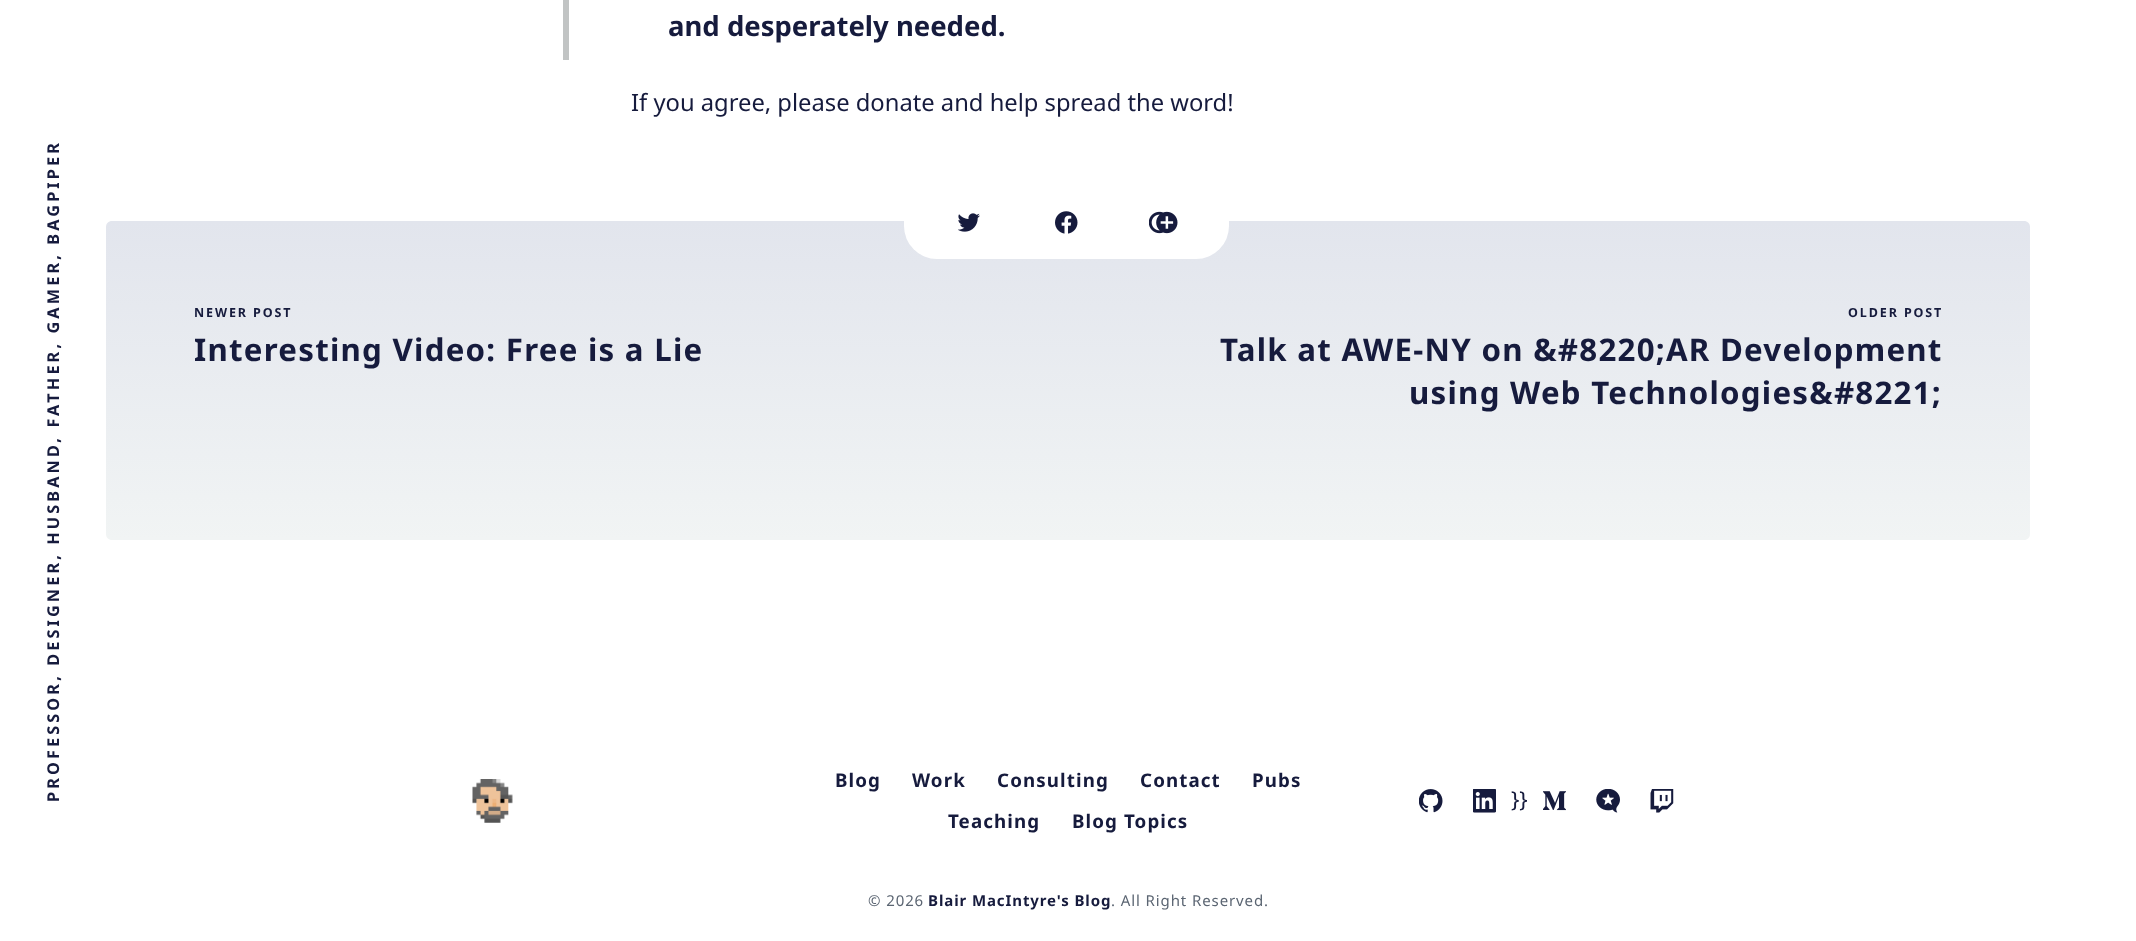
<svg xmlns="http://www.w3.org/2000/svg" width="2136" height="941">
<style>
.a{font:bold 27.5px Noto Sans;fill:#161b3d}
.b{font:23.75px Noto Sans;fill:#161b3d}
.c{font:bold 16.25px Noto Sans;letter-spacing:3.12px;fill:#161b3d}
.d{font:bold 12.5px Noto Sans;letter-spacing:1.9px;fill:#161b3d}
.e{font:bold 31.25px Noto Sans;letter-spacing:1.25px;fill:#161b3d}
.f{font:bold 18.75px Noto Sans;letter-spacing:1.1px;fill:#161b3d}
.g{font:22px Noto Sans;fill:#161b3d}
.h{font:15px Noto Sans;letter-spacing:0.9px;fill:#5b6572}
.i{font:bold 15px Noto Sans;letter-spacing:0.9px;fill:#161b3d}
</style>
<defs>
<linearGradient id="g1" gradientUnits="userSpaceOnUse" x1="588" y1="221" x2="588" y2="540"><stop offset="0" stop-color="#e2e5ed"/><stop offset="1" stop-color="#f1f4f4"/></linearGradient>
<linearGradient id="g2" gradientUnits="userSpaceOnUse" x1="1549" y1="221" x2="1549" y2="540"><stop offset="0" stop-color="#e2e5ed"/><stop offset="1" stop-color="#f1f4f4"/></linearGradient>
</defs>
<rect width="100%" height="100%" fill="#fff"/>
<path fill="#c1c4c4" d="M563 0h6v60H563z"/>
<path fill="url(#g1)" d="M112 221h957v319h-957c-3.5 0-6-2.5-6-6v-307c0-3.5 2.5-6 6-6z"/>
<path fill="url(#g2)" d="M1069 221h955c3.5 0 6 2.5 6 6v307c0 3.5-2.5 6-6 6h-955z"/>
<rect fill="#fff" x="904" y="184" width="325" height="75" rx="33"/>
<image href="1.png" x="958" y="213" width="22" height="19"/>
<image href="2.png" x="1055" y="211" width="23" height="23"/>
<image href="3.png" x="1149" y="211" width="29" height="23"/>
<image href="4.png" x="472" y="779" width="41" height="44"/>
<image href="5.png" x="1419" y="789" width="24" height="24"/>
<image href="6.png" x="1473" y="789" width="23" height="24"/>
<image href="7.png" x="1543" y="791" width="23" height="20"/>
<image href="8.png" x="1596" y="789" width="24" height="24"/>
<image href="9.png" x="1650" y="789" width="24" height="24"/>
<text class="a" x="668" y="36">and desperately needed.</text>
<text class="b" x="631" y="111">If you agree, please donate and help spread the word!</text>
<text class="c" x="59" y="802" transform="rotate(-90 59 802)">PROFESSOR, DESIGNER, HUSBAND, FATHER, GAMER, BAGPIPER</text>
<text class="d" x="194" y="317">NEWER POST</text>
<text class="e" x="194" y="361">Interesting Video: Free is a Lie</text>
<text class="d" x="1848" y="317">OLDER POST</text>
<text class="e" x="1220" y="361">Talk at AWE-NY on &amp;#8220;AR Development</text>
<text class="e" x="1409" y="404">using Web Technologies&amp;#8221;</text>
<text class="f" x="835" y="787">Blog</text>
<text class="f" x="912" y="787">Work</text>
<text class="f" x="997" y="787">Consulting</text>
<text class="f" x="1140" y="787">Contact</text>
<text class="f" x="1252" y="787">Pubs</text>
<text class="f" x="948" y="828">Teaching</text>
<text class="f" x="1072" y="828">Blog Topics</text>
<text class="g" x="1511" y="807">}}</text>
<text class="h" x="868" y="906">© 2026</text>
<text class="i" x="928" y="906">Blair MacIntyre's Blog</text>
<text class="h" x="1111" y="906">. All Right Reserved.</text>
</svg>
